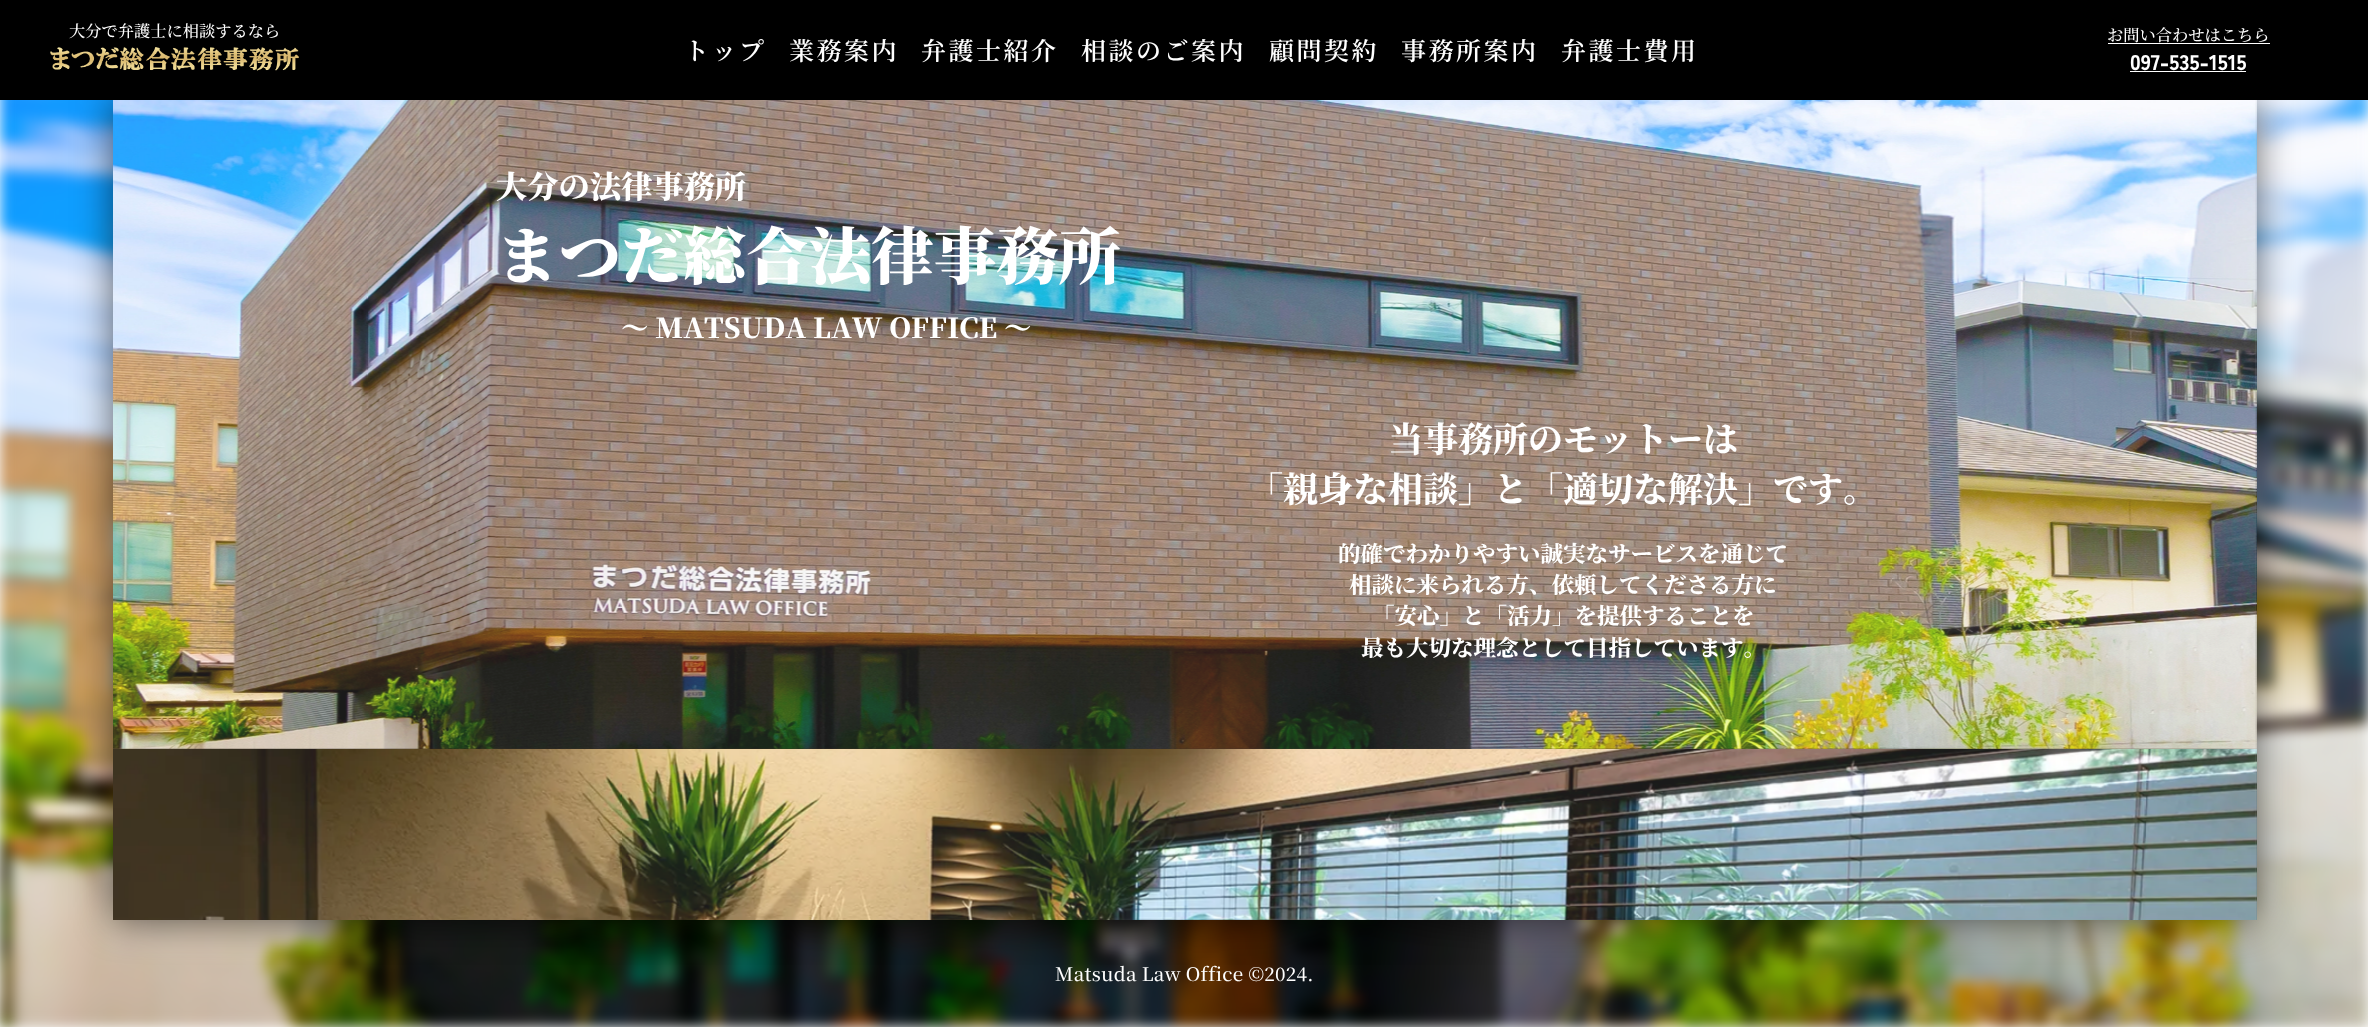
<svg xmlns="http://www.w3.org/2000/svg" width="2368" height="1027">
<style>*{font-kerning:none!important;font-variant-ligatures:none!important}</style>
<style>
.a{font:500 16.25px Noto Serif JP;fill:#fff}
.b{font:600 25px Noto Serif JP;letter-spacing:2.5px;fill:#fff}
.c{font:900 21.25px Zen Kaku Gothic New;fill:#fff}
.d{font:900 31.25px Noto Serif JP;fill:#fff}
.e{font:900 62.5px Noto Serif JP;fill:#fff}
.f{font:900 27.5px Noto Serif JP;fill:#fff}
.g{font:800 35px Noto Serif JP;fill:#fff}
.h{font:800 22.5px Noto Serif JP;fill:#fff}
.i{font:500 18.75px Noto Serif JP;letter-spacing:0.25px;fill:#fff}
</style>
<rect width="100%" height="100%" fill="#fff"/>
<image href="2.png" x="0" y="100" width="2368" height="927"/>
<path fill="#00000099" filter="blur(19px)" d="M113 100h2143v820H113z"/>
<path fill="#000" d="M0 0h2368v100H0z"/>
<image href="1.png" x="50" y="47" width="249" height="24"/>
<path fill="#fff" d="M2108 43h162v1H2108z"/>
<path fill="#fff" d="M2130 71h116v1H2130z"/>
<image href="3.png" x="113" y="100" width="2144" height="649"/>
<path fill="#ffffff1a" d="M113 100h2143v649H113z"/>
<image href="4.png" x="113" y="749" width="2144" height="171"/>
<path fill="#ffffff1a" d="M113 749h2143v171H113z"/>
<text class="a" x="69" y="37">大分で弁護士に相談するなら</text>
<text class="b" x="684" y="60">トップ</text>
<text class="b" x="789" y="60">業務案内</text>
<text class="b" x="921" y="60">弁護士紹介</text>
<text class="b" x="1081" y="60">相談のご案内</text>
<text class="b" x="1269" y="60">顧問契約</text>
<text class="b" x="1401" y="60">事務所案内</text>
<text class="b" x="1561" y="60">弁護士費用</text>
<text class="a" x="2107" y="41">お問い合わせはこちら</text>
<text class="c" x="2130" y="70">097-535-1515</text>
<text class="d" x="496" y="198">大分の法律事務所</text>
<text class="e" x="496" y="279">まつだ総合法律事務所</text>
<text class="f" x="621" y="338">～ MATSUDA</text>
<text class="f" x="813" y="338">LAW OFFICE ～</text>
<text class="g" x="1388" y="452">当事務所のモットーは</text>
<text class="g" x="1248" y="502">「親身な相談」と「適切な解決」です。</text>
<text class="h" x="1338" y="562">的確でわかりやすい誠実なサービスを通じて</text>
<text class="h" x="1349" y="593">相談に来られる方、依頼してくださる方に</text>
<text class="h" x="1372" y="624">「安心」と「活力」を提供することを</text>
<text class="h" x="1361" y="656">最も大切な理念として目指しています。</text>
<text class="i" x="1055" y="981">Matsuda Law Office ©2024.</text>
</svg>
